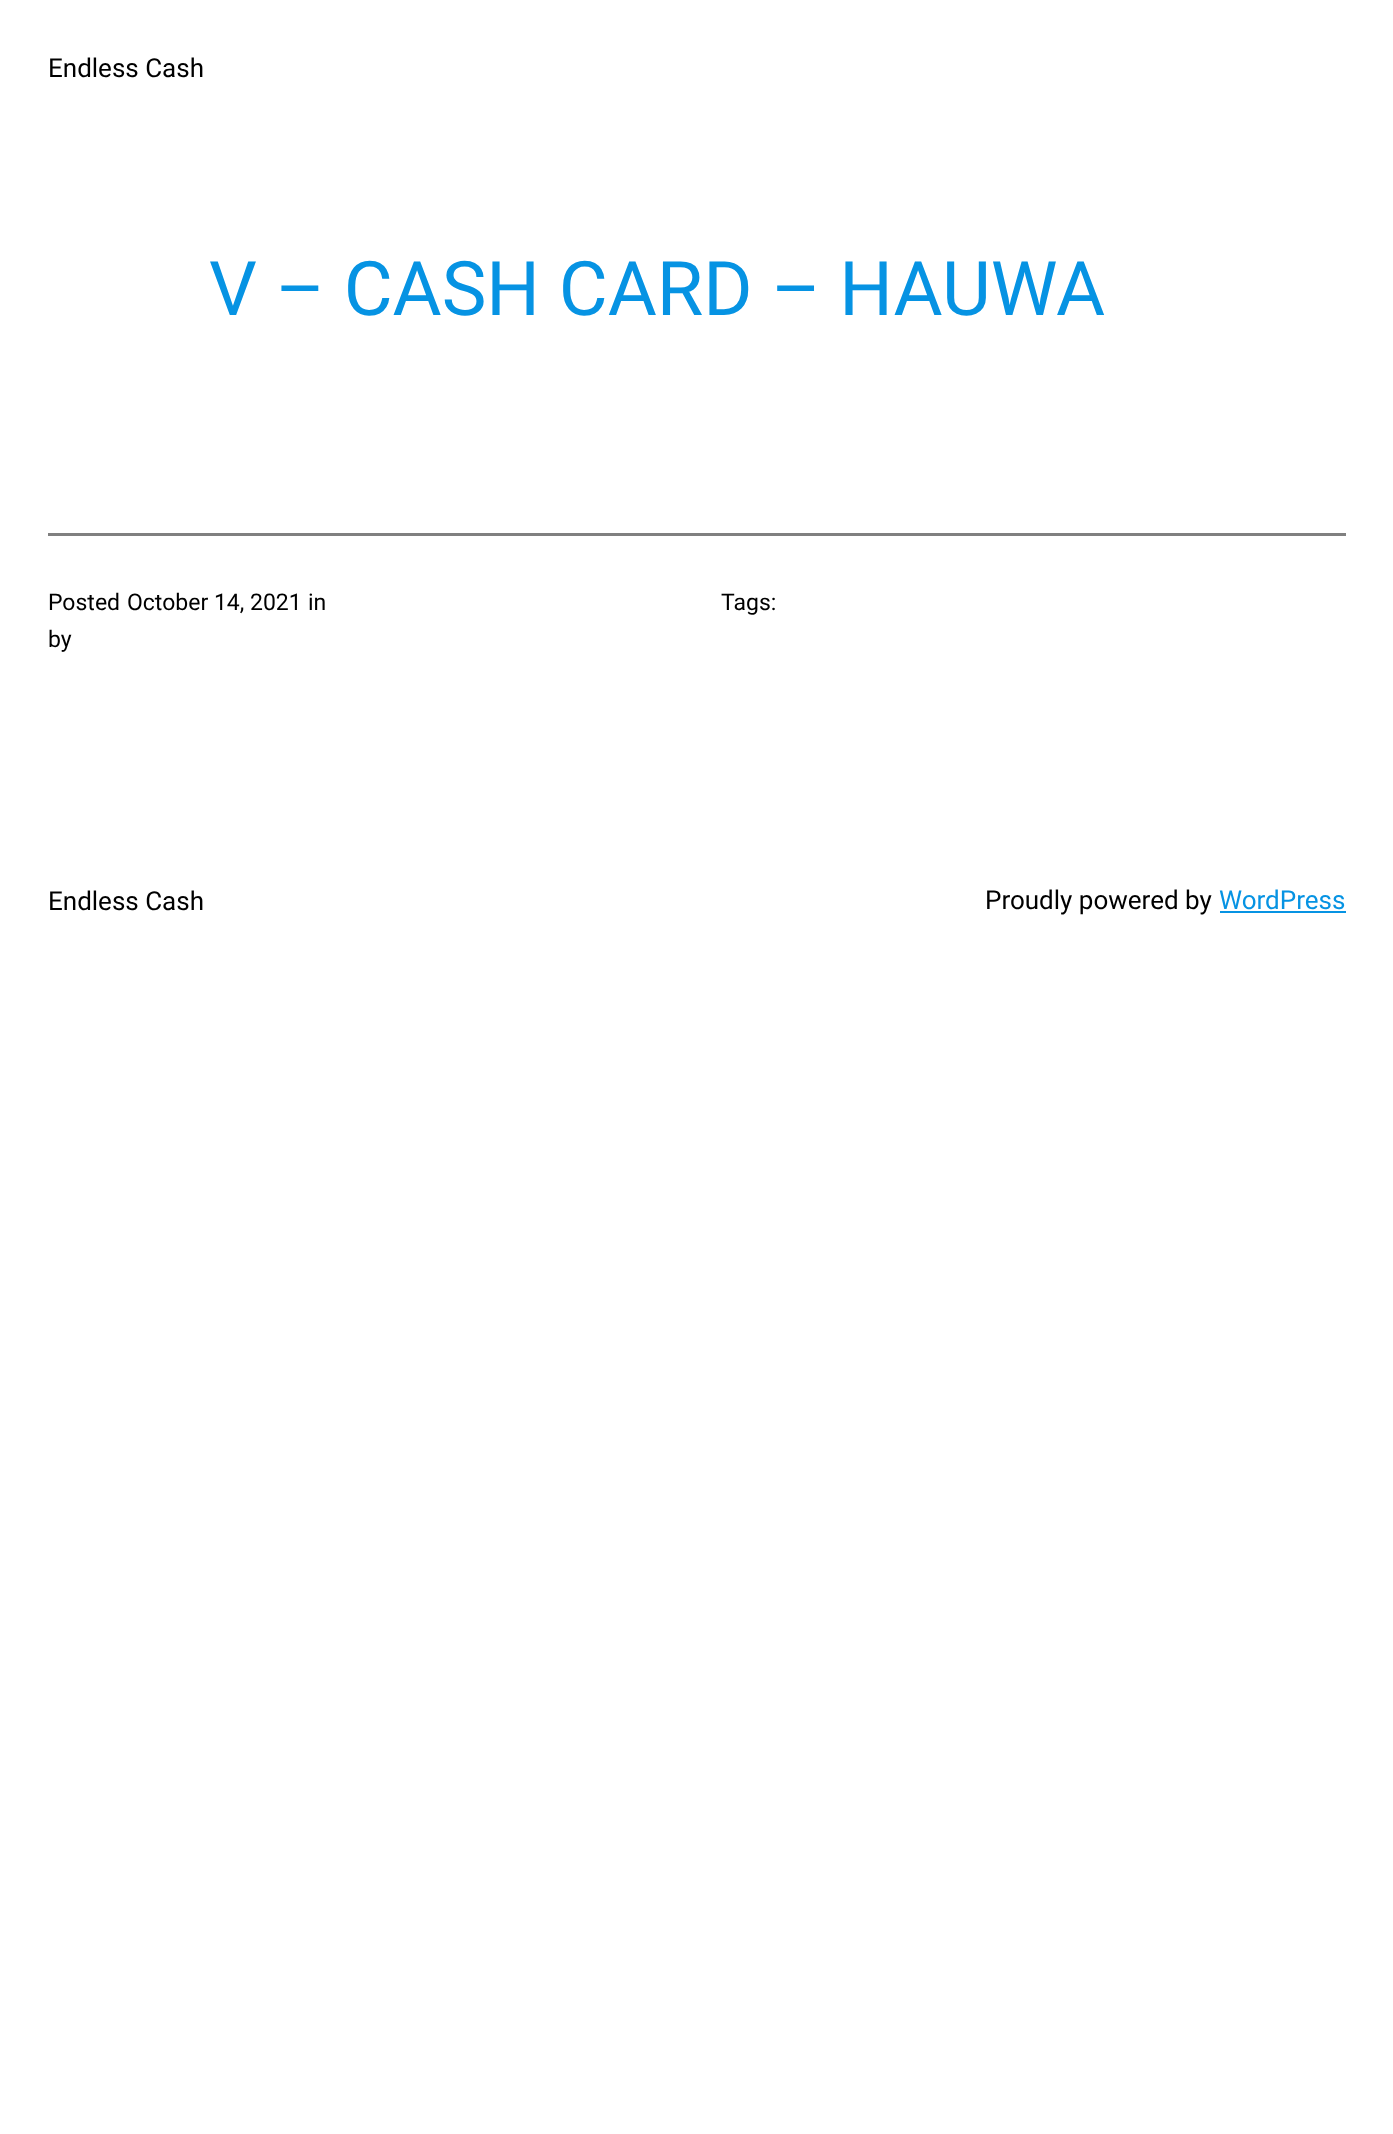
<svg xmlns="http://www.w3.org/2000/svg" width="1393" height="2134">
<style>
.a{font:26px Roboto;fill:#000}
.b{font:75.25px Roboto;fill:#0693e3}
.c{font:23px Roboto;fill:#000}
.d{font:26px Roboto;fill:#0693e3}
</style>
<rect width="100%" height="100%" fill="#fff"/>
<path fill="#808080" d="M48 533h1298v3H48z"/>
<path fill="#0693e3" d="M1220 911h126v2H1220z"/>
<text class="a" x="48" y="77">Endless Cash</text>
<text class="b" x="209" y="315">V – CASH CARD – HAUWA</text>
<text class="c" x="48" y="610">Posted</text>
<text class="c" x="127" y="610">October 14, 2021</text>
<text class="c" x="308" y="610">in</text>
<text class="c" x="48" y="647">by</text>
<text class="c" x="721" y="610">Tags:</text>
<text class="a" x="48" y="910">Endless Cash</text>
<text class="a" x="985" y="909">Proudly powered by</text>
<text class="d" x="1219" y="909">WordPress</text>
</svg>
